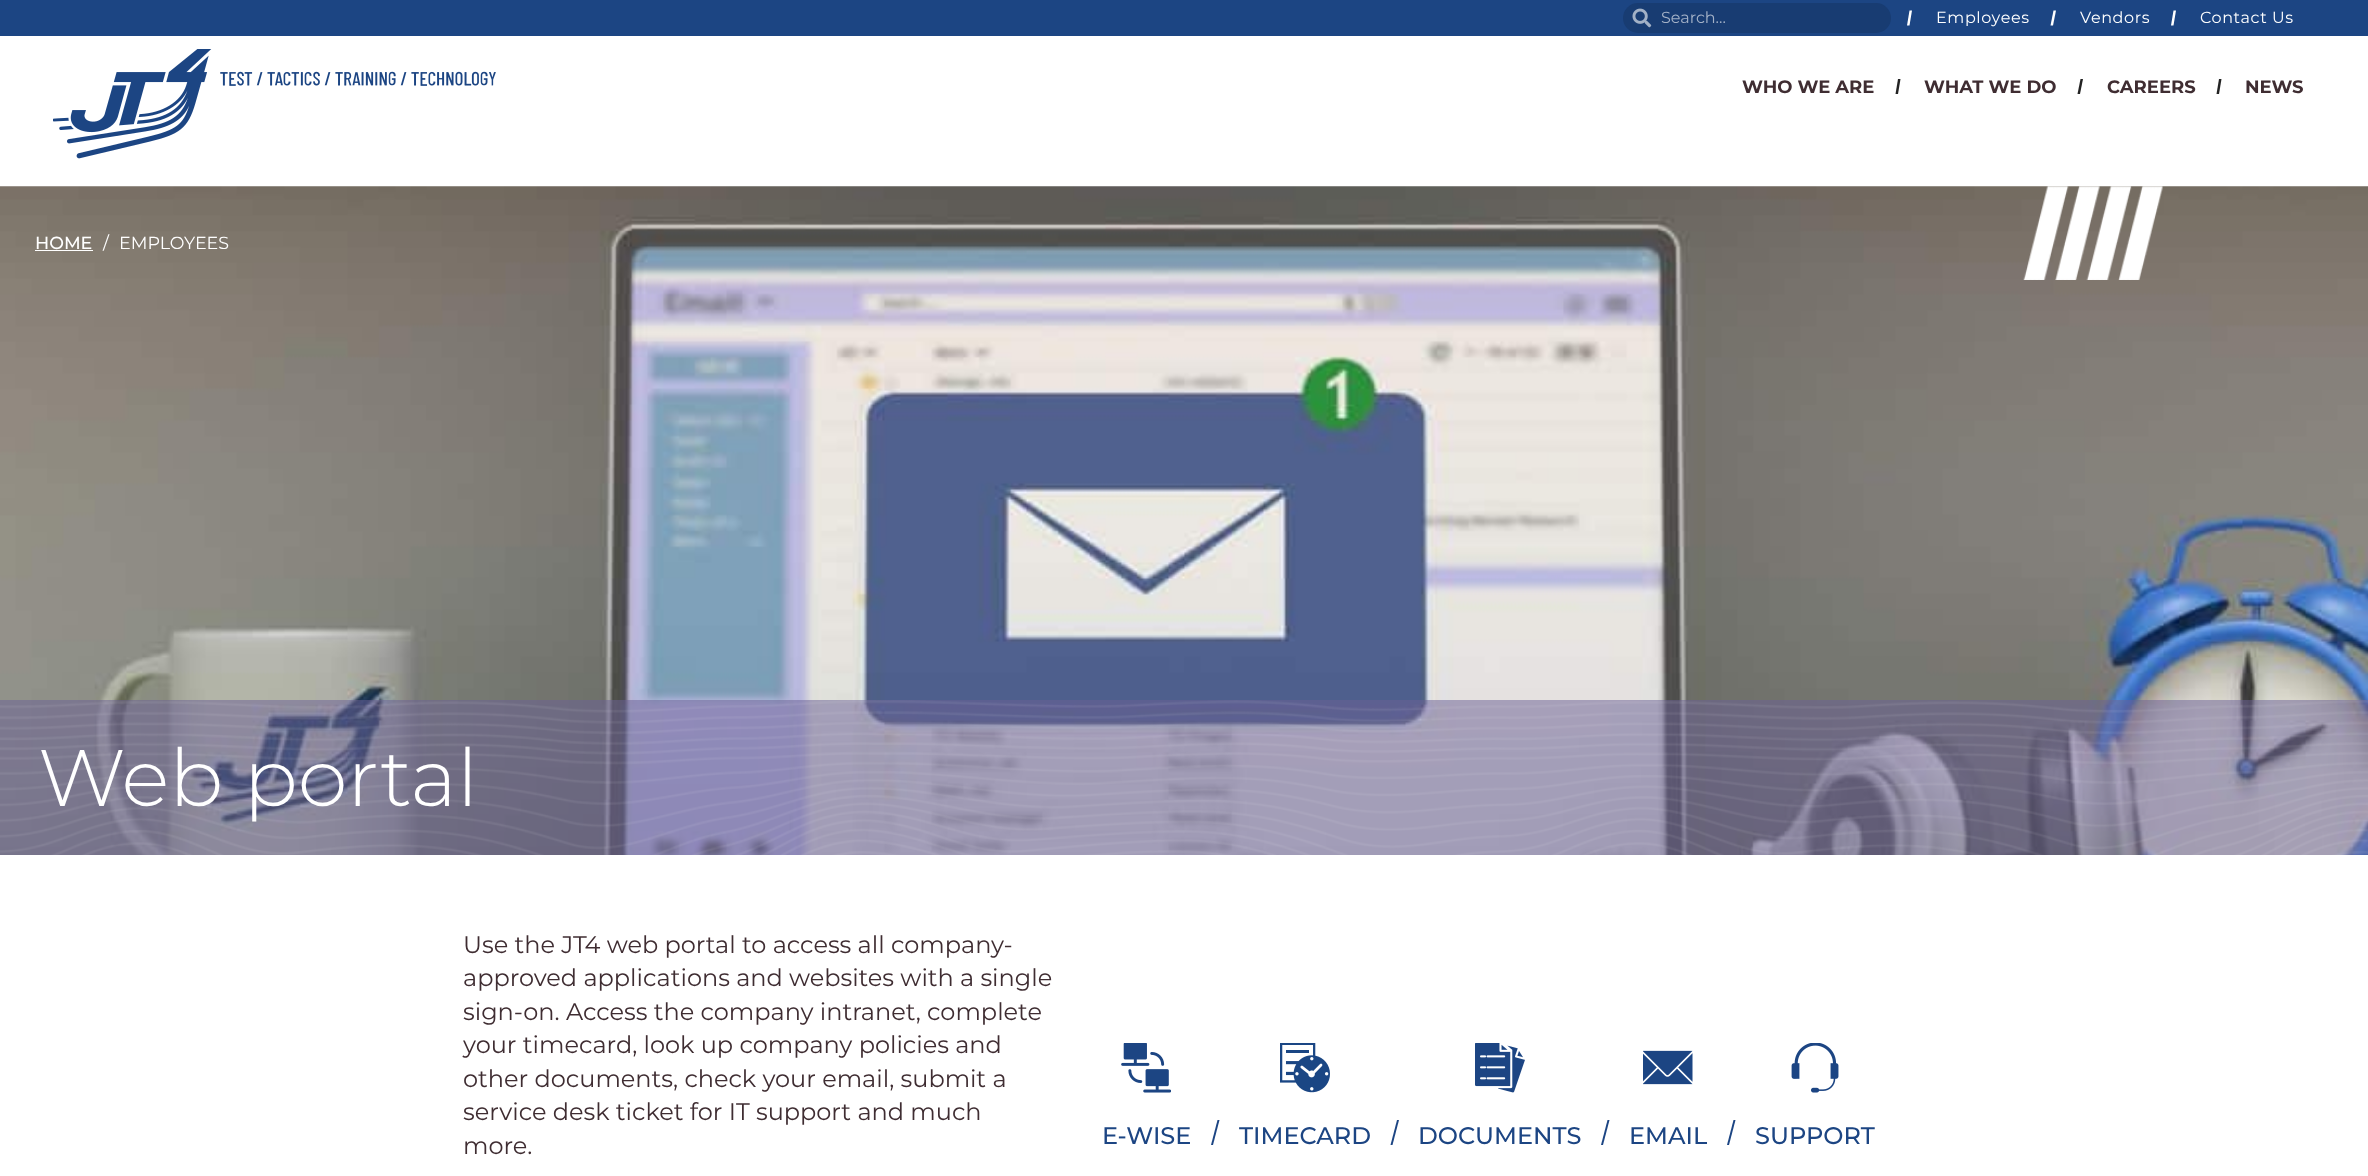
<svg xmlns="http://www.w3.org/2000/svg" width="2368" height="1176">
<style>
.a{font:16px Montserrat;fill:#a3b1c7}
.b{font:16px Montserrat;letter-spacing:0.6px;fill:#fff}
.c{font:bold 18px Montserrat;fill:#3f2d32}
.d{font:500 17.5px Montserrat;fill:#fff}
.e{font:17.5px Montserrat;fill:#fff}
.f{font:300 80px Montserrat;fill:#fff}
.g{font:24px Montserrat;fill:#3f2d32}
.h{font:500 24px Montserrat;fill:#1c4583}
</style>
<rect width="100%" height="100%" fill="#fff"/>
<path fill="#1c4583" d="M0 0h2368v36H0z"/>
<rect fill="#183c72" x="1623" y="3" width="268" height="30" rx="15"/>
<image href="1.png" x="1632" y="8" width="20" height="20"/>
<path fill="#fff" d="M1909.5 10.5h2.5l-2.5 15h-2.5z"/>
<path fill="#fff" d="M2053.5 10.5h2.5l-3 15h-2.5z"/>
<path fill="#fff" d="M2173.5 10.5h2.5l-2.5 15h-2.5z"/>
<image href="2.png" x="53" y="49" width="443" height="110"/>
<path fill="#232323" d="M1898 79h2.5l-2.5 15h-2.5z"/>
<path fill="#232323" d="M2080.5 79h2.5l-3 15h-2.5z"/>
<path fill="#232323" d="M2219 79h2.5l-2.5 15h-2.5z"/>
<image href="3.png" x="0" y="186" width="2368" height="669"/>
<path fill="#fff" d="M35 250h58v1H35z"/>
<image href="4.png" x="2023" y="186" width="140" height="94"/>
<path fill="#6b629585" d="M0 700h2368v155H0z"/>
<image href="5.png" x="0" y="700" width="2368" height="155"/>
<image href="6.png" x="1121" y="1043" width="50" height="50"/>
<path fill="#1c4583" d="M1217.5 1120h2l-6.5 25h-2z"/>
<image href="7.png" x="1280" y="1043" width="50" height="50"/>
<path fill="#1c4583" d="M1397 1120h2l-6.5 25h-2z"/>
<image href="8.png" x="1475" y="1043" width="50" height="50"/>
<path fill="#1c4583" d="M1607.5 1120h2l-6.5 25h-2z"/>
<image href="9.png" x="1643" y="1050" width="50" height="35"/>
<path fill="#1c4583" d="M1733.5 1120h2l-6.5 25h-2z"/>
<image href="10.png" x="1791" y="1043" width="48" height="50"/>
<text class="a" x="1661" y="23">Search...</text>
<text class="b" x="1936" y="23">Employees</text>
<text class="b" x="2080" y="23">Vendors</text>
<text class="b" x="2200" y="23">Contact Us</text>
<text class="c" x="1742" y="93">WHO WE ARE</text>
<text class="c" x="1924" y="93">WHAT WE DO</text>
<text class="c" x="2107" y="93">CAREERS</text>
<text class="c" x="2245" y="93">NEWS</text>
<text class="d" x="35" y="249">HOME</text>
<text class="e" x="103" y="249">/</text>
<text class="e" x="119" y="249">EMPLOYEES</text>
<text class="f" x="38" y="806">Web portal</text>
<text class="g" x="463" y="953">Use the JT4 web portal to access all company-</text>
<text class="g" x="463" y="986">approved applications and websites with a single</text>
<text class="g" x="463" y="1020">sign-on. Access the company intranet, complete</text>
<text class="g" x="463" y="1053">your timecard, look up company policies and</text>
<text class="g" x="463" y="1087">other documents, check your email, submit a</text>
<text class="g" x="463" y="1120">service desk ticket for IT support and much</text>
<text class="g" x="463" y="1154">more.</text>
<text class="h" x="1102" y="1144">E-WISE</text>
<text class="h" x="1239" y="1144">TIMECARD</text>
<text class="h" x="1418" y="1144">DOCUMENTS</text>
<text class="h" x="1629" y="1144">EMAIL</text>
<text class="h" x="1755" y="1144">SUPPORT</text>
</svg>
